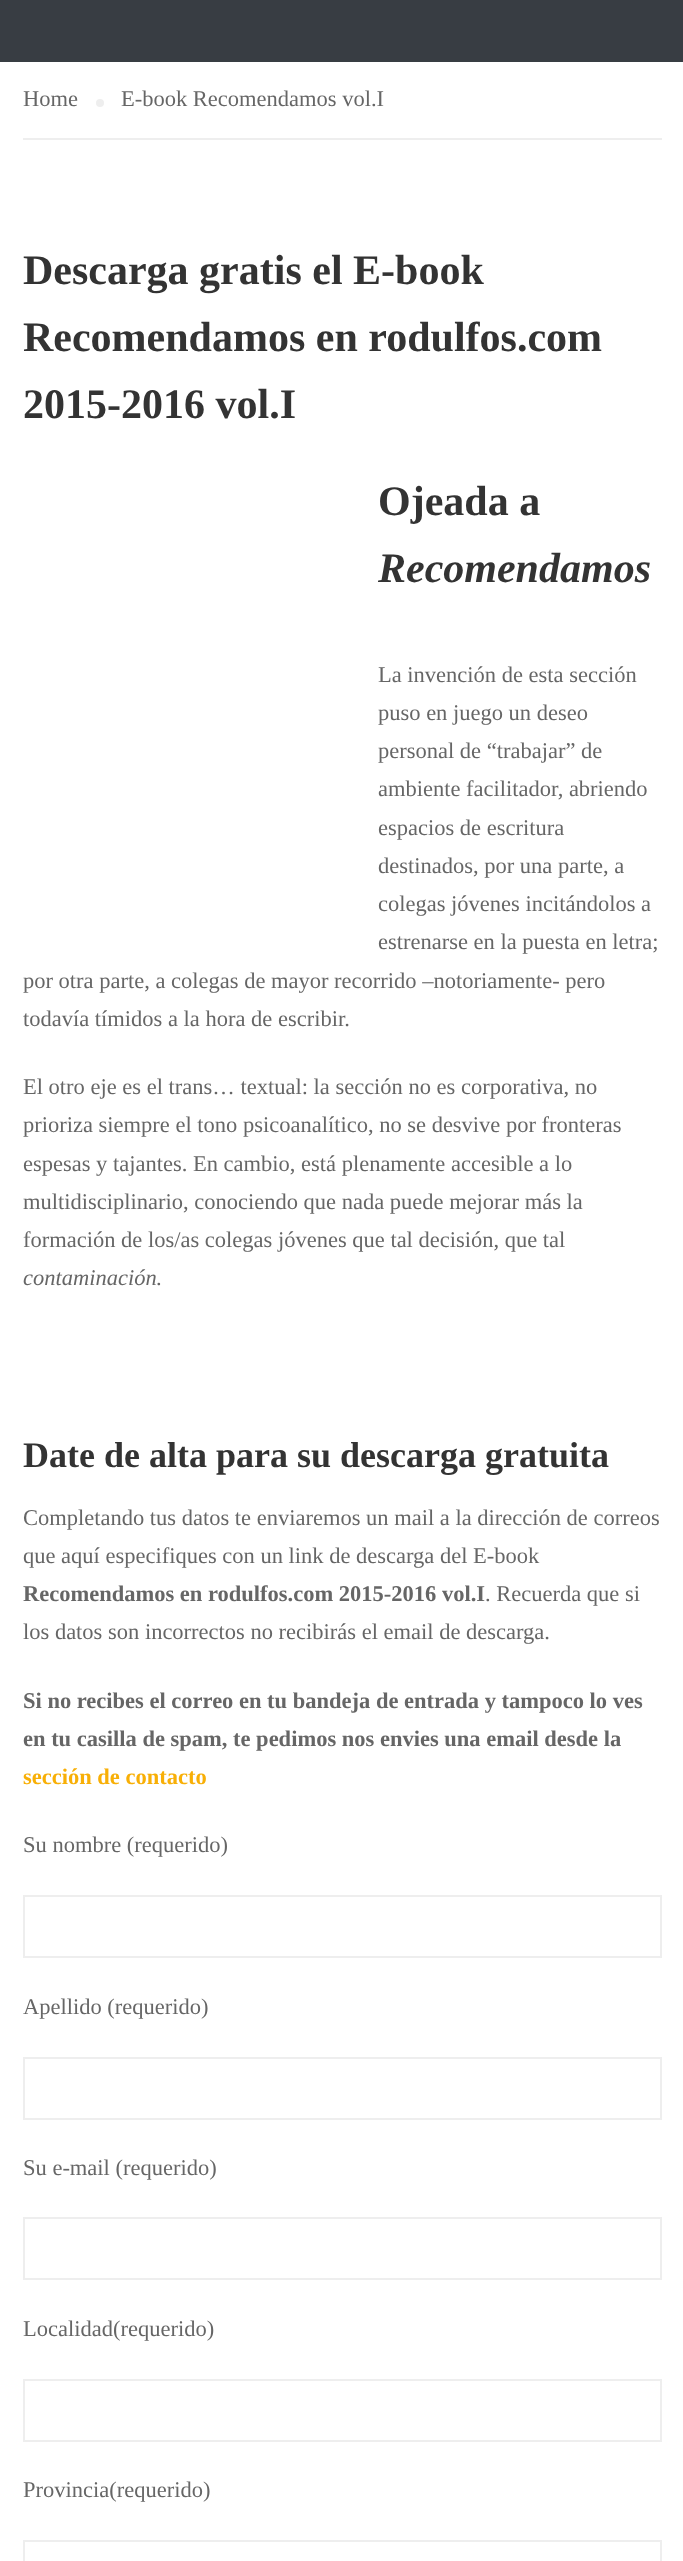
<svg xmlns="http://www.w3.org/2000/svg" width="683" height="2561">
<style>
.a{font:22.5px Liberation Serif;fill:#666}
.b{font:bold 42px Liberation Serif;fill:#333}
.c{font:italic bold 42px Liberation Serif;fill:#333}
.d{font:italic 22.5px Liberation Serif;fill:#666}
.e{font:bold 36px Liberation Serif;fill:#333}
.f{font:bold 22.5px Liberation Serif;fill:#666}
.g{font:bold 22.5px Liberation Serif;fill:#f8af06}
</style>
<rect width="100%" height="100%" fill="#fff"/>
<path fill="#383d43" d="M0 0h683v62H0z"/>
<path fill="#eee" d="M23 138h639v2H23z"/>
<circle fill="#eee" cx="100" cy="103" r="4"/>
<path fill="none" stroke="#eee" stroke-width="2" d="M24 1896h637v61H24z"/>
<path fill="none" stroke="#eee" stroke-width="2" d="M24 2058h637v61H24z"/>
<path fill="none" stroke="#eee" stroke-width="2" d="M24 2218h637v61H24z"/>
<path fill="none" stroke="#eee" stroke-width="2" d="M24 2380h637v61H24z"/>
<path fill="none" stroke="#eee" stroke-width="2" d="M24 2541h637v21H24z"/>
<text class="a" x="23" y="106">Home</text>
<text class="a" x="121" y="106">E-book Recomendamos vol.I</text>
<text class="b" x="23" y="284">Descarga gratis el E-book</text>
<text class="b" x="23" y="351">Recomendamos en rodulfos.com</text>
<text class="b" x="23" y="418">2015-2016 vol.I</text>
<text class="b" x="378" y="515">Ojeada a</text>
<text class="c" x="378" y="582">Recomendamos</text>
<text class="a" x="378" y="682">La invención de esta sección</text>
<text class="a" x="378" y="720">puso en juego un deseo</text>
<text class="a" x="378" y="758">personal de “trabajar” de</text>
<text class="a" x="378" y="796">ambiente facilitador, abriendo</text>
<text class="a" x="378" y="835">espacios de escritura</text>
<text class="a" x="378" y="873">destinados, por una parte, a</text>
<text class="a" x="378" y="911">colegas jóvenes incitándolos a</text>
<text class="a" x="378" y="949">estrenarse en la puesta en letra;</text>
<text class="a" x="23" y="988">por otra parte, a colegas de mayor recorrido –notoriamente- pero</text>
<text class="a" x="23" y="1026">todavía tímidos a la hora de escribir.</text>
<text class="a" x="23" y="1094">El otro eje es el trans… textual: la sección no es corporativa, no</text>
<text class="a" x="23" y="1132">prioriza siempre el tono psicoanalítico, no se desvive por fronteras</text>
<text class="a" x="23" y="1171">espesas y tajantes. En cambio, está plenamente accesible a lo</text>
<text class="a" x="23" y="1209">multidisciplinario, conociendo que nada puede mejorar más la</text>
<text class="a" x="23" y="1247">formación de los/as colegas jóvenes que tal decisión, que tal</text>
<text class="d" x="23" y="1285">contaminación</text>
<text class="a" x="156" y="1285">.</text>
<text class="e" x="23" y="1467">Date de alta para su descarga gratuita</text>
<text class="a" x="23" y="1525">Completando tus datos te enviaremos un mail a la dirección de correos</text>
<text class="a" x="23" y="1563">que aquí especifiques con un link de descarga del E-book</text>
<text class="f" x="23" y="1601">Recomendamos en rodulfos.com 2015-2016 vol.I</text>
<text class="a" x="485" y="1601">. Recuerda que si</text>
<text class="a" x="23" y="1639">los datos son incorrectos no recibirás el email de descarga.</text>
<text class="f" x="23" y="1708">Si no recibes el correo en tu bandeja de entrada y tampoco lo ves</text>
<text class="f" x="23" y="1746">en tu casilla de spam, te pedimos nos envies una email desde la</text>
<text class="g" x="23" y="1784">sección de contacto</text>
<text class="a" x="23" y="1852">Su nombre (requerido)</text>
<text class="a" x="23" y="2014">Apellido (requerido)</text>
<text class="a" x="23" y="2175">Su e-mail (requerido)</text>
<text class="a" x="23" y="2336">Localidad(requerido)</text>
<text class="a" x="23" y="2497">Provincia(requerido)</text>
</svg>
